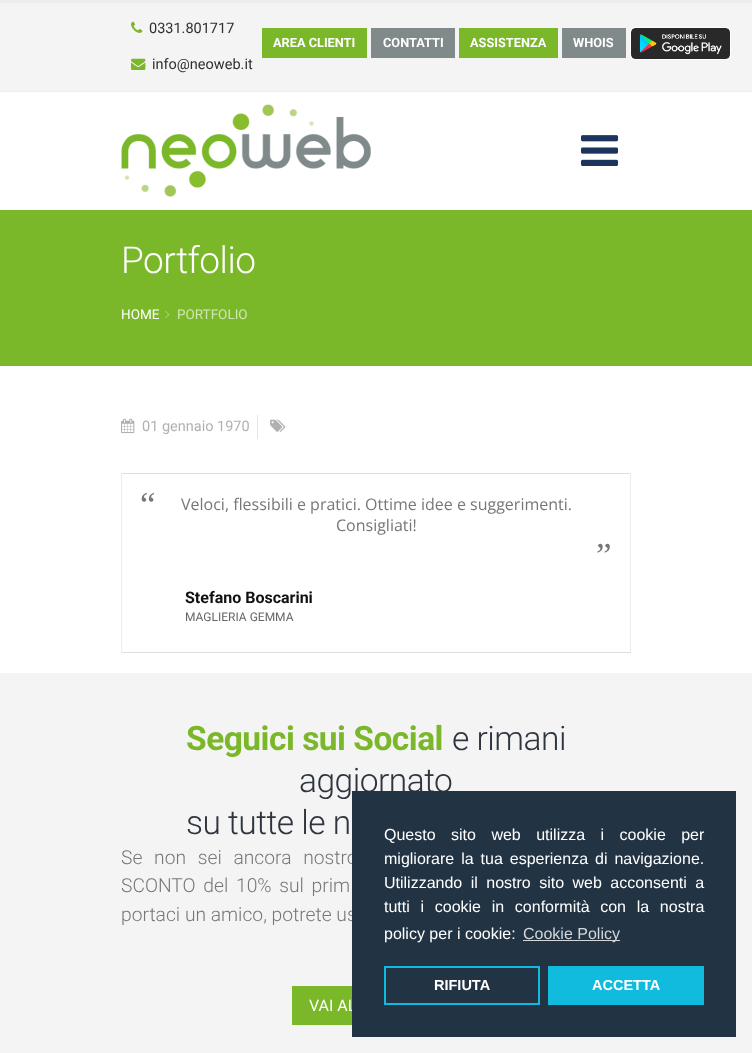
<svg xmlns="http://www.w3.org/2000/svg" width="752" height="1053">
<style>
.a{font:14.5px Roboto;fill:#2f2f2f}
.b{font:bold 12.75px Roboto;fill:#fff}
.c{font:300 37px Roboto;letter-spacing:-0.5px;fill:#fff}
.d{font:13.5px Roboto;fill:#fff}
.e{font:13.5px Roboto;fill:#d0e6b4}
.f{font:14.5px Roboto;fill:#b1b1b1}
.g{font:35px Liberation Serif;fill:#777}
.h{font:16px Open Sans;fill:#777}
.i{font:bold 16px Roboto;fill:#111}
.j{font:12px Roboto;fill:#666}
.k{font:bold 33.5px Roboto;letter-spacing:-0.5px;fill:#7ab829}
.l{font:300 33.5px Roboto;letter-spacing:-0.5px;fill:#2e353e}
.m{font:300 19.25px Roboto;fill:#777}
.n{font:16px Roboto;fill:#fff}
.o{font:16px Liberation Sans;fill:#fff}
.p{font:16px Liberation Sans;fill:#d3d6da}
.q{font:bold 14.5px Liberation Sans;fill:#fff}
</style>
<rect width="100%" height="100%" fill="#fff"/>
<path fill="#ededed" d="M0 0h752v3H0z"/>
<path fill="#f4f4f4" d="M0 3h752v88H0z"/>
<path fill="#ededed" d="M0 91h752v1H0z"/>
<image href="1.png" x="131" y="21" width="12" height="12"/>
<image href="2.png" x="131" y="58" width="15" height="12"/>
<path fill="#7ab829" d="M262 28h105v30H262z"/>
<path fill="#818a8b" d="M371 28h84v30H371z"/>
<path fill="#7ab829" d="M459 28h99v30H459z"/>
<path fill="#818a8b" d="M562 28h64v30H562z"/>
<image href="3.png" x="630" y="27" width="101" height="33"/>
<image href="4.png" x="121" y="104" width="250" height="93"/>
<image href="5.png" x="581" y="135" width="38" height="31"/>
<path fill="#7ab829" d="M0 210h752v156H0z"/>
<image href="6.png" x="165" y="311" width="5" height="8"/>
<path fill="#e6e6e6" d="M257 415h1v24H257z"/>
<image href="7.png" x="121" y="418" width="14" height="16"/>
<image href="8.png" x="270" y="419" width="16" height="13"/>
<path fill="#dfdfdf" d="M121 473h510v1H121z"/>
<path fill="#ececec" d="M630 473h1v180H630z"/>
<path fill="#dfdfdf" d="M121 652h510v1H121z"/>
<path fill="#ececec" d="M121 473h1v180H121z"/>
<path fill="#f4f4f4" d="M0 673h752v380H0z"/>
<path fill="#7ab829" d="M292 986h60v39H292z"/>
<text class="a" x="149" y="33">0331.801717</text>
<text class="a" x="152" y="69">info@neoweb.it</text>
<text class="b" x="273" y="47">AREA CLIENTI</text>
<text class="b" x="383" y="47">CONTATTI</text>
<text class="b" x="470" y="47">ASSISTENZA</text>
<text class="b" x="573" y="47">WHOIS</text>
<text class="c" x="121" y="273">Portfolio</text>
<text class="d" x="121" y="319">HOME</text>
<text class="e" x="177" y="319">PORTFOLIO</text>
<text class="f" x="142" y="431">01 gennaio 1970</text>
<text class="g" x="140" y="516">“</text>
<text class="h" x="181" y="510">Veloci, flessibili e pratici. Ottime idee e suggerimenti.</text>
<text class="h" x="336" y="531">Consigliati!</text>
<text class="g" x="596" y="567">”</text>
<text class="i" x="185" y="603">Stefano Boscarini</text>
<text class="j" x="185" y="621">MAGLIERIA GEMMA</text>
<text class="k" x="186" y="750">Seguici sui Social</text>
<text class="l" x="452" y="750">e rimani</text>
<text class="l" x="299" y="792">aggiornato</text>
<text class="l" x="186" y="834">su tutte le n</text>
<text class="m" x="121" y="864" word-spacing="7">Se non sei ancora nostro</text>
<text class="m" x="121" y="892" word-spacing="3">SCONTO del 10% sul prim</text>
<text class="m" x="121" y="921">portaci un amico, potrete us</text>
<text class="n" x="309" y="1011">VAI AL</text>
<path fill="#234" d="M352 791h384v246H352z"/>
<text class="o" x="384" y="840" word-spacing="11">Questo sito web utilizza i cookie per</text>
<text class="o" x="384" y="864" word-spacing="2.5">migliorare la tua esperienza di navigazione.</text>
<text class="o" x="384" y="888" word-spacing="4">Utilizzando il nostro sito web acconsenti a</text>
<text class="o" x="384" y="912" word-spacing="6.25">tutti i cookie in conformità con la nostra</text>
<text class="o" x="384" y="939">policy per i cookie:</text>
<path fill="#d3d6da" d="M523 940h97v1H523z"/>
<text class="p" x="523" y="939">Cookie Policy</text>
<path fill="none" stroke="#1bd" stroke-width="2" d="M385 967h154v37H385z"/>
<text class="q" x="434" y="990">RIFIUTA</text>
<path fill="#1bd" d="M548 966h156v39H548z"/>
<text class="q" x="592" y="990">ACCETTA</text>
</svg>
